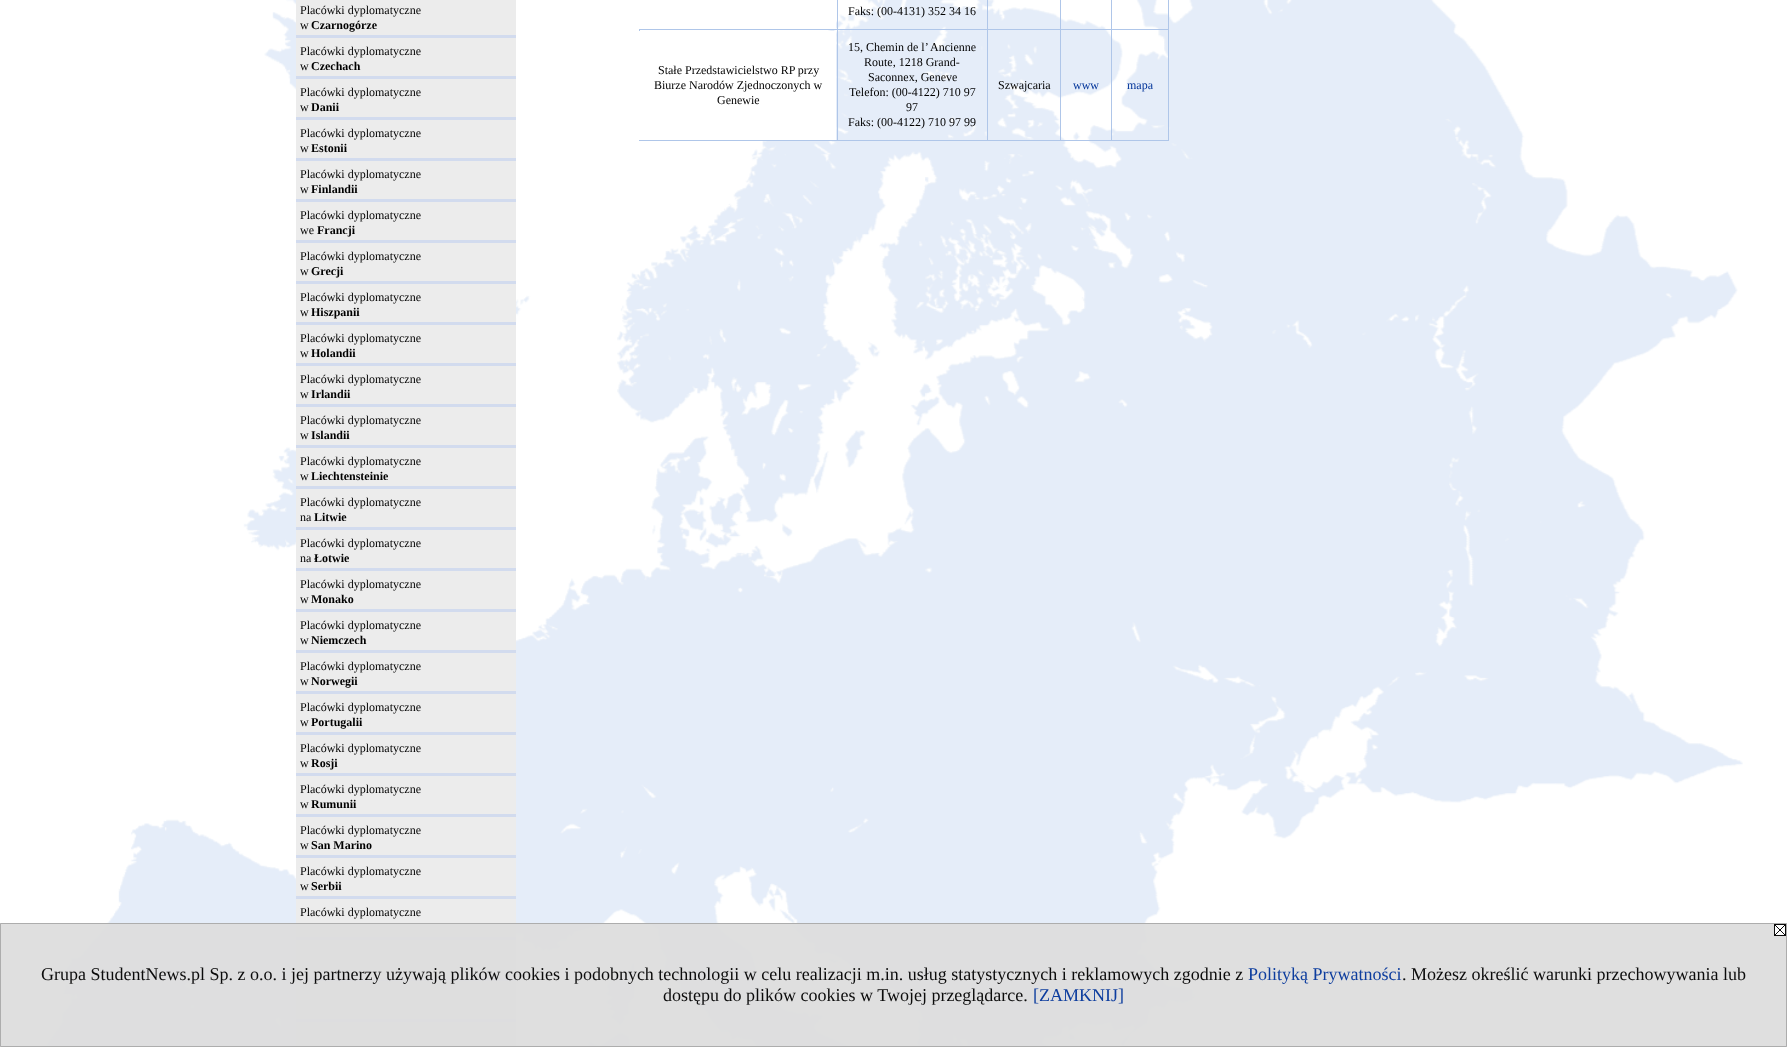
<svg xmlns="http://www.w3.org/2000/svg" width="1787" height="1047">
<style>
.a{font:12px Liberation Serif;fill:#000}
.b{font:bold 12px Liberation Serif;fill:#000}
.c{font:12px Liberation Serif;fill:#039}
.d{font:18px Liberation Serif;fill:#0b0b0b}
.e{font:18px Liberation Serif;fill:#0d3d9e}
</style>
<rect width="100%" height="100%" fill="#fff"/>
<image href="1.png" x="45" y="0" width="1698" height="1047"/>
<path fill="#ececec" d="M296 0h220v1047H296z"/>
<path fill="#d2dbee" d="M296 35h220v3H296z"/>
<path fill="#d2dbee" d="M296 76h220v3H296z"/>
<path fill="#d2dbee" d="M296 117h220v3H296z"/>
<path fill="#d2dbee" d="M296 158h220v3H296z"/>
<path fill="#d2dbee" d="M296 199h220v3H296z"/>
<path fill="#d2dbee" d="M296 240h220v3H296z"/>
<path fill="#d2dbee" d="M296 281h220v3H296z"/>
<path fill="#d2dbee" d="M296 322h220v3H296z"/>
<path fill="#d2dbee" d="M296 363h220v3H296z"/>
<path fill="#d2dbee" d="M296 404h220v3H296z"/>
<path fill="#d2dbee" d="M296 445h220v3H296z"/>
<path fill="#d2dbee" d="M296 486h220v3H296z"/>
<path fill="#d2dbee" d="M296 527h220v3H296z"/>
<path fill="#d2dbee" d="M296 568h220v3H296z"/>
<path fill="#d2dbee" d="M296 609h220v3H296z"/>
<path fill="#d2dbee" d="M296 650h220v3H296z"/>
<path fill="#d2dbee" d="M296 691h220v3H296z"/>
<path fill="#d2dbee" d="M296 732h220v3H296z"/>
<path fill="#d2dbee" d="M296 773h220v3H296z"/>
<path fill="#d2dbee" d="M296 814h220v3H296z"/>
<path fill="#d2dbee" d="M296 855h220v3H296z"/>
<path fill="#d2dbee" d="M296 896h220v3H296z"/>
<path fill="#d2dbee" d="M296 937h220v3H296z"/>
<path fill="#d2dbee" d="M296 978h220v3H296z"/>
<path fill="#d2dbee" d="M296 1019h220v3H296z"/>
<path fill="#afc6e9" d="M1168 0h1v141H1168z"/>
<path fill="#afc6e9" d="M639 140h530v1H639z"/>
<path fill="#afc6e9" d="M639 30h1v111H639z"/>
<path fill="#afc6e9" d="M1111 29h58v1H1111z"/>
<path fill="#afc6e9" d="M1111 29h1v112H1111z"/>
<path fill="#afc6e9" d="M1060 29h52v1H1060z"/>
<path fill="#afc6e9" d="M1060 29h1v112H1060z"/>
<path fill="#afc6e9" d="M987 29h74v1H987z"/>
<path fill="#afc6e9" d="M987 29h1v112H987z"/>
<path fill="#afc6e9" d="M837 29h151v1H837z"/>
<path fill="#afc6e9" d="M837 29h1v112H837z"/>
<path fill="#afc6e9" d="M639 29h199v1H639z"/>
<path fill="#afc6e9" d="M837 0h1v30H837z"/>
<path fill="#afc6e9" d="M987 0h1v30H987z"/>
<path fill="#afc6e9" d="M1060 0h1v30H1060z"/>
<path fill="#afc6e9" d="M1111 0h1v30H1111z"/>
<path fill="#fff" d="M830 21h6v8H830z"/>
<path fill="#fff" d="M639 31h197v109H639z"/>
<path fill="#ddddddf2" d="M0 923h1787v124H0z"/>
<path fill="none" stroke="#aaaaaaf2" d="M0.5 923.5h1786v123H0.5z"/>
<image href="2.png" x="1774" y="924" width="12" height="12"/>
<text class="a" x="300" y="14">Placówki dyplomatyczne</text>
<text class="a" x="300" y="29">w</text>
<text class="b" x="311" y="29">Czarnogórze</text>
<text class="a" x="300" y="55">Placówki dyplomatyczne</text>
<text class="a" x="300" y="70">w</text>
<text class="b" x="311" y="70">Czechach</text>
<text class="a" x="300" y="96">Placówki dyplomatyczne</text>
<text class="a" x="300" y="111">w</text>
<text class="b" x="311" y="111">Danii</text>
<text class="a" x="300" y="137">Placówki dyplomatyczne</text>
<text class="a" x="300" y="152">w</text>
<text class="b" x="311" y="152">Estonii</text>
<text class="a" x="300" y="178">Placówki dyplomatyczne</text>
<text class="a" x="300" y="193">w</text>
<text class="b" x="311" y="193">Finlandii</text>
<text class="a" x="300" y="219">Placówki dyplomatyczne</text>
<text class="a" x="300" y="234">we</text>
<text class="b" x="317" y="234">Francji</text>
<text class="a" x="300" y="260">Placówki dyplomatyczne</text>
<text class="a" x="300" y="275">w</text>
<text class="b" x="311" y="275">Grecji</text>
<text class="a" x="300" y="301">Placówki dyplomatyczne</text>
<text class="a" x="300" y="316">w</text>
<text class="b" x="311" y="316">Hiszpanii</text>
<text class="a" x="300" y="342">Placówki dyplomatyczne</text>
<text class="a" x="300" y="357">w</text>
<text class="b" x="311" y="357">Holandii</text>
<text class="a" x="300" y="383">Placówki dyplomatyczne</text>
<text class="a" x="300" y="398">w</text>
<text class="b" x="311" y="398">Irlandii</text>
<text class="a" x="300" y="424">Placówki dyplomatyczne</text>
<text class="a" x="300" y="439">w</text>
<text class="b" x="311" y="439">Islandii</text>
<text class="a" x="300" y="465">Placówki dyplomatyczne</text>
<text class="a" x="300" y="480">w</text>
<text class="b" x="311" y="480">Liechtensteinie</text>
<text class="a" x="300" y="506">Placówki dyplomatyczne</text>
<text class="a" x="300" y="521">na</text>
<text class="b" x="314" y="521">Litwie</text>
<text class="a" x="300" y="547">Placówki dyplomatyczne</text>
<text class="a" x="300" y="562">na</text>
<text class="b" x="314" y="562">Łotwie</text>
<text class="a" x="300" y="588">Placówki dyplomatyczne</text>
<text class="a" x="300" y="603">w</text>
<text class="b" x="311" y="603">Monako</text>
<text class="a" x="300" y="629">Placówki dyplomatyczne</text>
<text class="a" x="300" y="644">w</text>
<text class="b" x="311" y="644">Niemczech</text>
<text class="a" x="300" y="670">Placówki dyplomatyczne</text>
<text class="a" x="300" y="685">w</text>
<text class="b" x="311" y="685">Norwegii</text>
<text class="a" x="300" y="711">Placówki dyplomatyczne</text>
<text class="a" x="300" y="726">w</text>
<text class="b" x="311" y="726">Portugalii</text>
<text class="a" x="300" y="752">Placówki dyplomatyczne</text>
<text class="a" x="300" y="767">w</text>
<text class="b" x="311" y="767">Rosji</text>
<text class="a" x="300" y="793">Placówki dyplomatyczne</text>
<text class="a" x="300" y="808">w</text>
<text class="b" x="311" y="808">Rumunii</text>
<text class="a" x="300" y="834">Placówki dyplomatyczne</text>
<text class="a" x="300" y="849">w</text>
<text class="b" x="311" y="849">San Marino</text>
<text class="a" x="300" y="875">Placówki dyplomatyczne</text>
<text class="a" x="300" y="890">w</text>
<text class="b" x="311" y="890">Serbii</text>
<text class="a" x="300" y="916">Placówki dyplomatyczne</text>
<text class="a" x="848" y="15">Faks: (00-4131) 352 34 16</text>
<text class="a" x="658" y="74">Stałe Przedstawicielstwo RP przy</text>
<text class="a" x="654" y="89">Biurze Narodów Zjednoczonych w</text>
<text class="a" x="717" y="104">Genewie</text>
<text class="a" x="848" y="51">15, Chemin de l’ Ancienne</text>
<text class="a" x="864" y="66">Route, 1218 Grand-</text>
<text class="a" x="868" y="81">Saconnex, Geneve</text>
<text class="a" x="849" y="96">Telefon: (00-4122) 710 97</text>
<text class="a" x="906" y="111">97</text>
<text class="a" x="848" y="126">Faks: (00-4122) 710 97 99</text>
<text class="a" x="998" y="89">Szwajcaria</text>
<text class="c" x="1073" y="89">www</text>
<text class="c" x="1127" y="89">mapa</text>
<text class="d" x="41" y="980">Grupa StudentNews.pl Sp. z o.o. i jej partnerzy używają plików cookies i podobnych technologii w celu realizacji m.in. usług statystycznych i reklamowych zgodnie z</text>
<text class="e" x="1248" y="980">Polityką Prywatności</text>
<text class="d" x="1402" y="980">. Możesz określić warunki przechowywania lub</text>
<text class="d" x="663" y="1001">dostępu do plików cookies w Twojej przeglądarce.</text>
<text class="e" x="1033" y="1001">[ZAMKNIJ]</text>
</svg>
